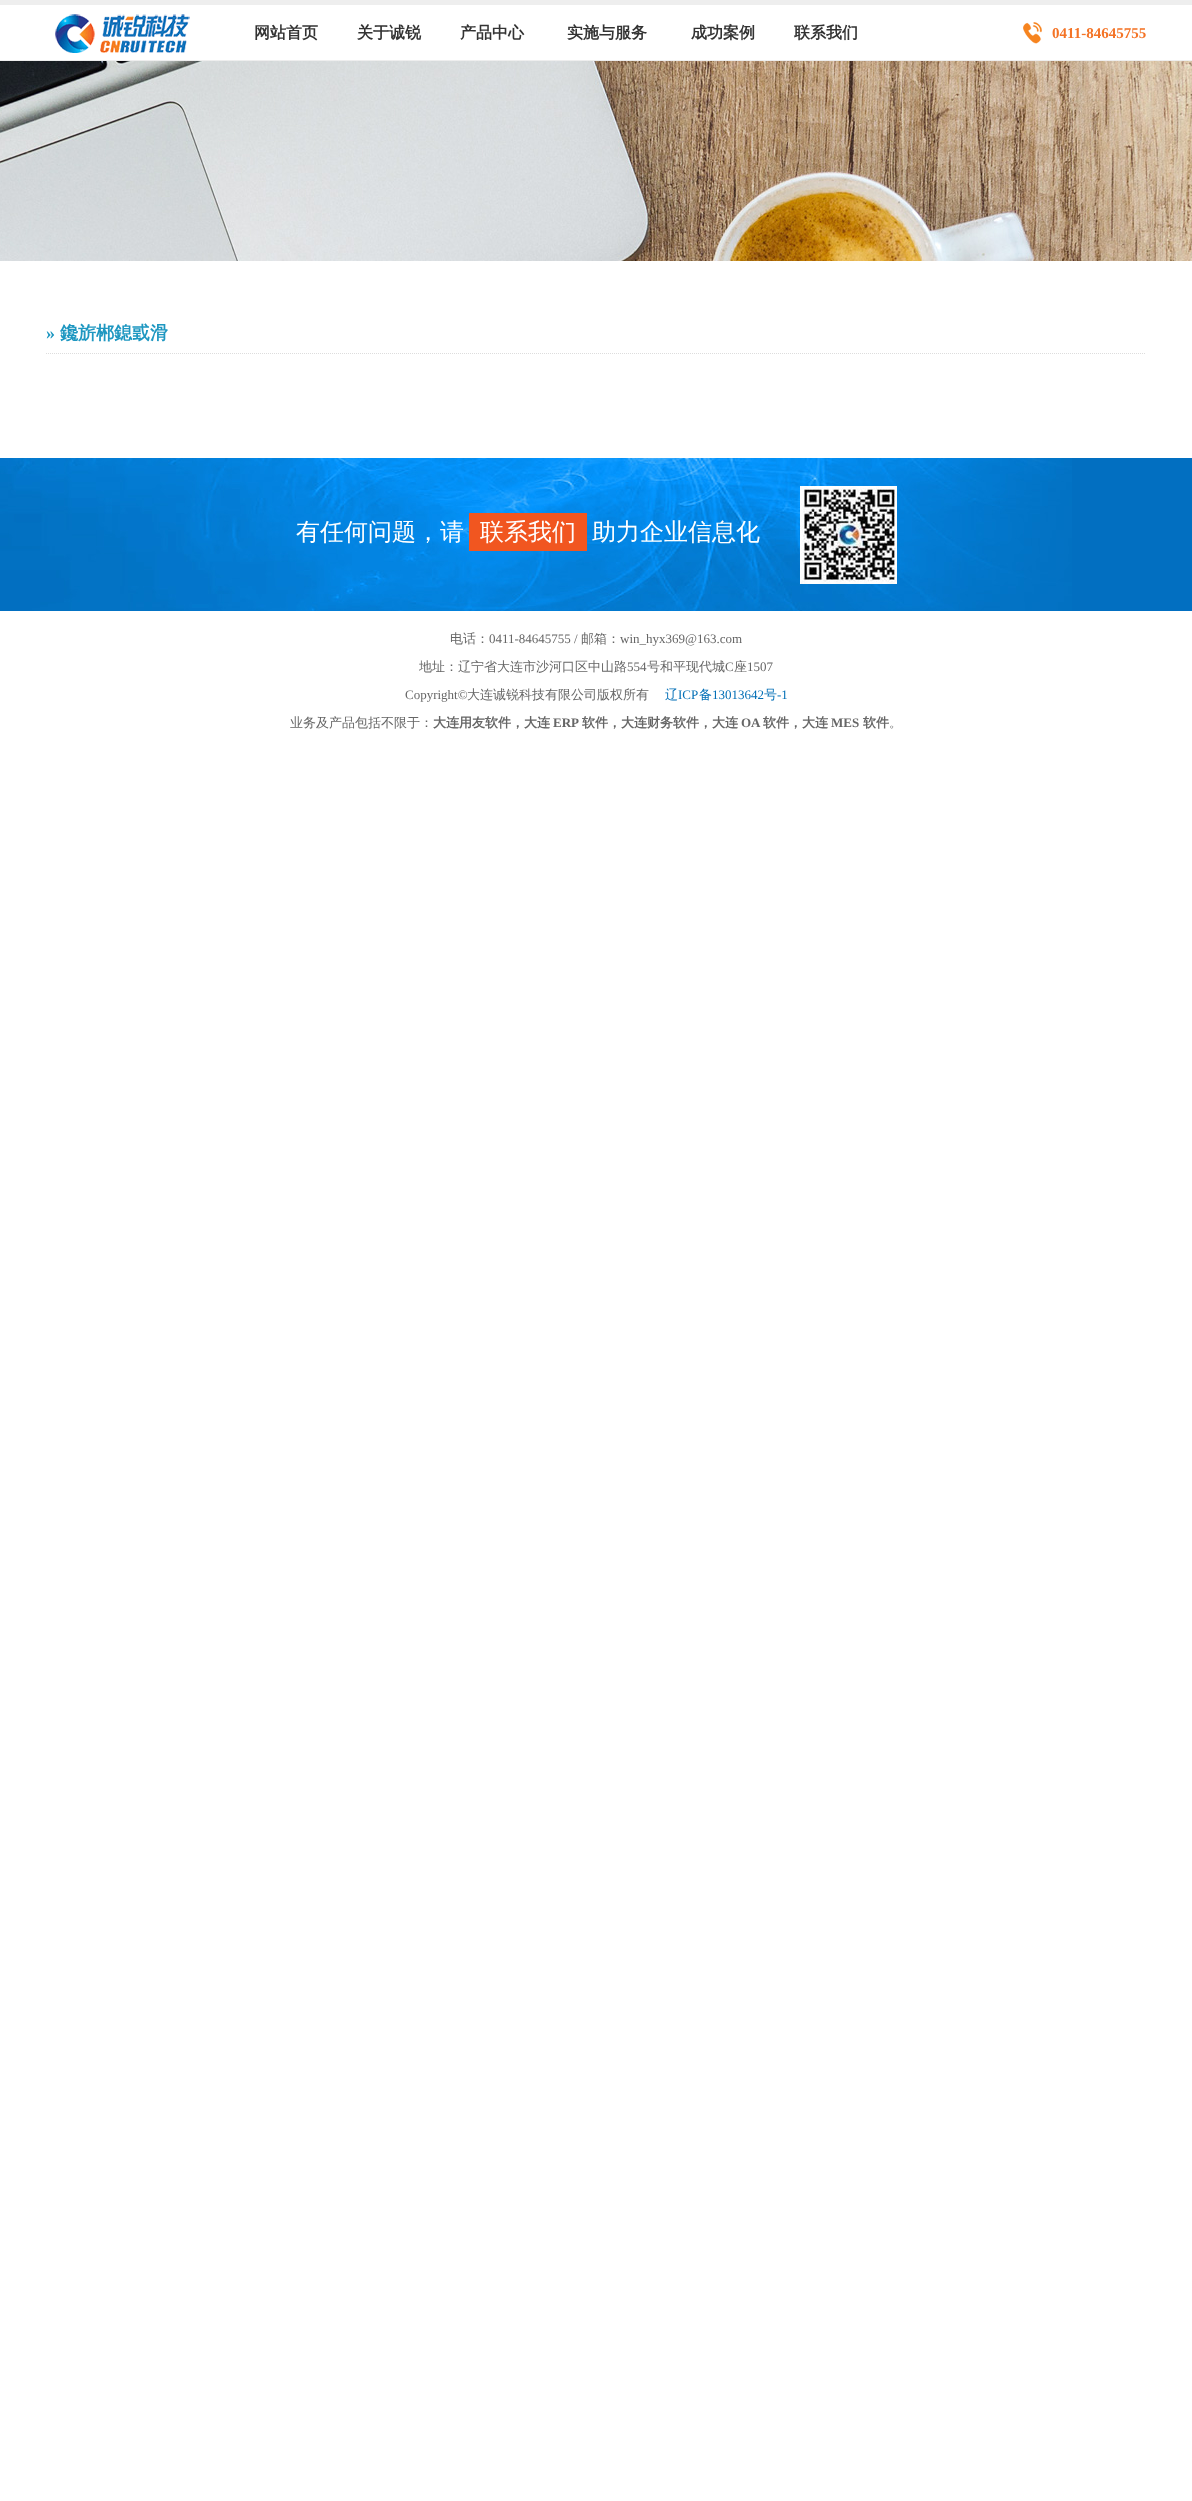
<svg xmlns="http://www.w3.org/2000/svg" width="1192" height="2501">
<style>
.a{font:bold 16px WenQuanYi Zen Hei;fill:#333}
.b{font:bold 15px Liberation Serif;fill:#f47325}
.c{font:bold 18px Liberation Serif;fill:#1e97c1}
.d{font:bold 18px WenQuanYi Zen Hei;fill:#1e97c1}
.e{font:500 24px WenQuanYi Zen Hei;fill:#fff}
.f{font:500 13px WenQuanYi Zen Hei;fill:#666}
.g{font:13px Liberation Serif;fill:#666}
.h{font:500 13px WenQuanYi Zen Hei;fill:#006eb6}
.i{font:13px Liberation Serif;fill:#006eb6}
.j{font:bold 13px WenQuanYi Zen Hei;fill:#666}
.k{font:bold 13px Liberation Serif;fill:#666}
</style>
<rect width="100%" height="100%" fill="#fff"/>
<path fill="#eee" d="M0 0h1192v5H0z"/>
<path fill="#eee" d="M0 60h1192v1H0z"/>
<image href="1.png" x="55" y="14" width="135" height="39"/>
<image href="2.png" x="1023" y="22" width="19" height="22"/>
<image href="3.png" x="0" y="61" width="1192" height="200"/>
<path fill="none" stroke="#ddd" stroke-dasharray="1 1" d="M46 353.5h1100"/>
<image href="4.png" x="0" y="458" width="1192" height="153"/>
<path fill="#f15620" d="M469 513h118v38H469z"/>
<image href="5.png" x="800" y="486" width="97" height="98"/>
<text class="a" x="254" y="38">网站首页</text>
<text class="a" x="357" y="38">关于诚锐</text>
<text class="a" x="460" y="38">产品中心</text>
<text class="a" x="567" y="38">实施与服务</text>
<text class="a" x="691" y="38">成功案例</text>
<text class="a" x="794" y="38">联系我们</text>
<text class="b" x="1052" y="38">0411-84645755</text>
<text class="c" x="46" y="339">»</text>
<text class="d" x="60" y="339">鑱旂郴鎴戜滑</text>
<text class="e" x="296" y="540">有任何问题，请</text>
<text class="e" x="480" y="540">联系我们</text>
<text class="e" x="592" y="540">助力企业信息化</text>
<text class="f" x="450" y="643">电话：</text>
<text class="g" x="489" y="643">0411-84645755 /</text>
<text class="f" x="581" y="643">邮箱：</text>
<text class="g" x="620" y="643">win_hyx369@163.com</text>
<text class="f" x="419" y="671">地址：辽宁省大连市沙河口区中山路</text>
<text class="g" x="627" y="671">554</text>
<text class="f" x="647" y="671">号和平现代城</text>
<text class="g" x="725" y="671">C</text>
<text class="f" x="734" y="671">座</text>
<text class="g" x="747" y="671">1507</text>
<text class="g" x="405" y="699">Copyright©</text>
<text class="f" x="467" y="699">大连诚锐科技有限公司版权所有</text>
<text class="h" x="665" y="699">辽</text>
<text class="i" x="678" y="699">ICP</text>
<text class="h" x="699" y="699">备</text>
<text class="i" x="712" y="699">13013642</text>
<text class="h" x="764" y="699">号</text>
<text class="i" x="777" y="699">-1</text>
<text class="f" x="290" y="727">业务及产品包括不限于：</text>
<text class="j" x="433" y="727">大连用友软件，大连</text>
<text class="k" x="553" y="727">ERP</text>
<text class="j" x="582" y="727">软件，大连财务软件，大连</text>
<text class="k" x="741" y="727">OA</text>
<text class="j" x="763" y="727">软件，大连</text>
<text class="k" x="831" y="727">MES</text>
<text class="j" x="863" y="727">软件</text>
<text class="f" x="889" y="727">。</text>
</svg>
